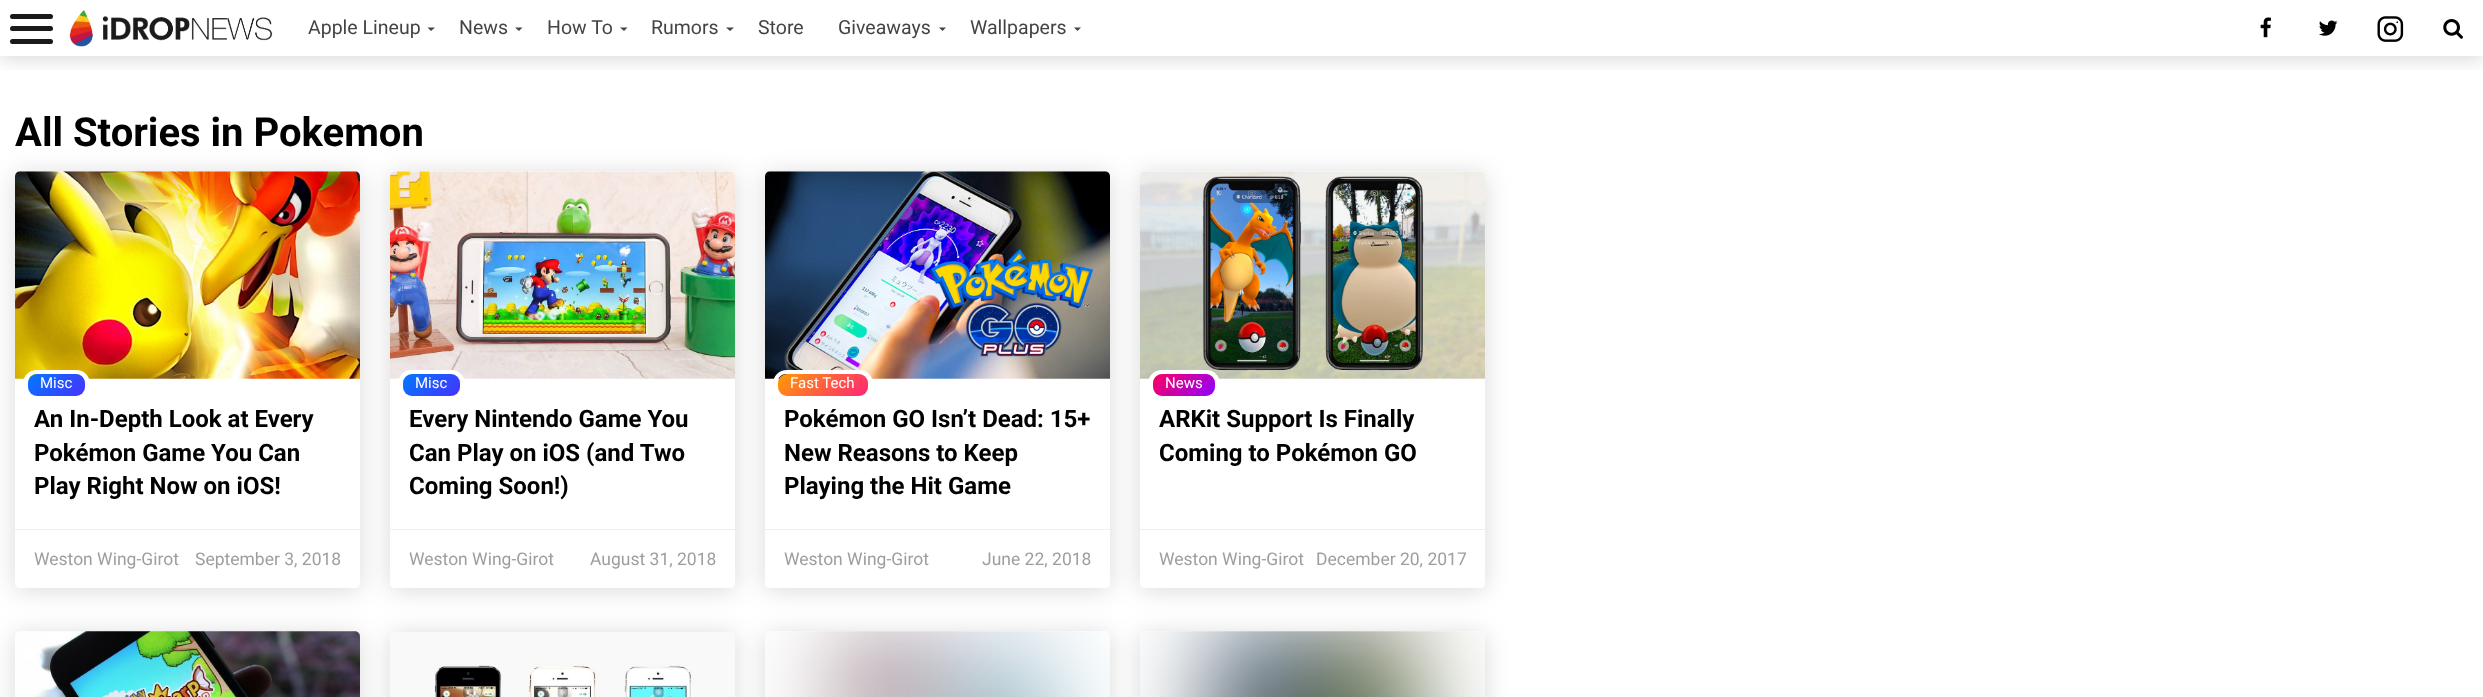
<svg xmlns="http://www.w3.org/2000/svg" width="2483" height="697">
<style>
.a{font:19.5px Roboto;fill:#444}
.b{font:bold 40px Roboto;fill:#000}
.c{font:15px Roboto;fill:#fff}
.d{font:bold 24px Roboto;fill:#000}
.e{font:17.5px Roboto;fill:#9e9e9e}
</style>
<defs>
<clipPath id="clip1"><path d="M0 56h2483v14H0z"/></clipPath>
<clipPath id="clip2"><path d="M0 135h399v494h-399zm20 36h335c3 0 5 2 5 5v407c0 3-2 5-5 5h-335c-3 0-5-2-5-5v-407c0-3 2-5 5-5z" clip-rule="evenodd"/></clipPath>
<linearGradient id="g1" gradientUnits="userSpaceOnUse" x1="36" y1="365" x2="76" y2="405"><stop offset="0" stop-color="#007aff"/><stop offset="1" stop-color="#4831ff"/></linearGradient>
<clipPath id="clip3"><path d="M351 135h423v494h-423zm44 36h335c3 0 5 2 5 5v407c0 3-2 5-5 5h-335c-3 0-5-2-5-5v-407c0-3 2-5 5-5z" clip-rule="evenodd"/></clipPath>
<linearGradient id="g2" gradientUnits="userSpaceOnUse" x1="411" y1="365" x2="451" y2="405"><stop offset="0" stop-color="#007aff"/><stop offset="1" stop-color="#4831ff"/></linearGradient>
<clipPath id="clip4"><path d="M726 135h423v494h-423zm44 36h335c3 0 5 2 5 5v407c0 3-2 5-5 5h-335c-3 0-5-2-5-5v-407c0-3 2-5 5-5z" clip-rule="evenodd"/></clipPath>
<linearGradient id="g3" gradientUnits="userSpaceOnUse" x1="794" y1="357" x2="851" y2="413"><stop offset="0" stop-color="#ff9b04"/><stop offset="1" stop-color="#ff2676"/></linearGradient>
<clipPath id="clip5"><path d="M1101 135h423v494h-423zm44 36h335c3 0 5 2 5 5v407c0 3-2 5-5 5h-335c-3 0-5-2-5-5v-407c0-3 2-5 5-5z" clip-rule="evenodd"/></clipPath>
<linearGradient id="g4" gradientUnits="userSpaceOnUse" x1="1205" y1="406" x2="1163" y2="364"><stop offset="0" stop-color="#9000ff"/><stop offset="1" stop-color="#ff005e"/></linearGradient>
<clipPath id="clip6"><path d="M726 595h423v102h-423zm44 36h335c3 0 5 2 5 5v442c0 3-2 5-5 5h-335c-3 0-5-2-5-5v-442c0-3 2-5 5-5z" clip-rule="evenodd"/></clipPath>
<clipPath id="clip7"><path d="M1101 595h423v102h-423zm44 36h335c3 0 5 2 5 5v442c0 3-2 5-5 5h-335c-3 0-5-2-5-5v-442c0-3 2-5 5-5z" clip-rule="evenodd"/></clipPath>
</defs>
<rect width="100%" height="100%" fill="#fff"/>
<g clip-path="url(#clip1)">
<path fill="#00000033" filter="blur(11px)" d="M0 0h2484v56H0z"/>
</g>
<rect fill="#1a1a1a" x="10" y="26" width="43" height="5" rx="2.5"/>
<rect fill="#1a1a1a" x="10" y="14" width="43" height="5" rx="2.5"/>
<rect fill="#1a1a1a" x="10" y="39" width="43" height="5" rx="2.5"/>
<image href="1.png" x="69" y="10" width="204" height="37"/>
<path fill="#444" d="M427.5 27.5h7.5l-4 3.5z"/>
<path fill="#444" d="M515 27.5h7.5l-3.5 3.5z"/>
<path fill="#444" d="M620 27.5h7.5l-3.5 3.5z"/>
<path fill="#444" d="M726 27.5h8l-4 3.5z"/>
<path fill="#444" d="M939 27.5h7l-3.5 3.5z"/>
<path fill="#444" d="M1074 27.5h7l-3.5 3.5z"/>
<image href="2.png" x="2260" y="17" width="11" height="21"/>
<image href="3.png" x="2319" y="20" width="19" height="16"/>
<image href="4.png" x="2377" y="16" width="27" height="26"/>
<image href="5.png" x="2443" y="19" width="20" height="20"/>
<g clip-path="url(#clip2)">
<rect fill="#00000026" filter="blur(12.5px)" x="15" y="174" width="345" height="416" rx="5"/>
</g>
<image href="6.png" x="15" y="171" width="345" height="208"/>
<path fill="#fff" fill-rule="evenodd" d="M37 370h39c8 0 14 6 14 14v5c0 8-6 14-14 14h-39c-8 0-14-6-14-14v-5c0-8 6-14 14-14zm-1 4c-5 0-8 4-8 9c-1 16 9 13 22 13h26c12 0 12-22 0-22z"/>
<rect fill="url(#g1)" x="28" y="374" width="57" height="22" rx="9"/>
<path fill="#eaf1f6" d="M15 529h345v1H15z"/>
<g clip-path="url(#clip3)">
<rect fill="#00000026" filter="blur(12.5px)" x="390" y="174" width="345" height="416" rx="5"/>
</g>
<image href="7.png" x="390" y="171" width="345" height="208"/>
<path fill="#fff" fill-rule="evenodd" d="M412 370h39c8 0 14 6 14 14v5c0 8-6 14-14 14h-39c-8 0-14-6-14-14v-5c0-8 6-14 14-14zm0 4c-13 0-13 22 0 22h26c13 0 23 3 22-13c0-5-4-9-9-9z"/>
<rect fill="url(#g2)" x="403" y="374" width="57" height="22" rx="9"/>
<path fill="#eaf1f6" d="M390 529h345v1H390z"/>
<g clip-path="url(#clip4)">
<rect fill="#00000026" filter="blur(12.5px)" x="765" y="174" width="345" height="416" rx="5"/>
</g>
<image href="8.png" x="765" y="171" width="345" height="208"/>
<path fill="#fff" fill-rule="evenodd" d="M787 370h72c8 0 14 6 14 14v5c0 8-6 14-14 14h-72c-8 0-14-6-14-14v-5c0-8 6-14 14-14zm-1 4c-12 0-12 22 0 22h72c13 0 13-22 0-22z"/>
<rect fill="url(#g3)" x="778" y="374" width="90" height="22" rx="9"/>
<path fill="#eaf1f6" d="M765 529h345v1H765z"/>
<g clip-path="url(#clip5)">
<rect fill="#00000026" filter="blur(12.5px)" x="1140" y="174" width="345" height="416" rx="5"/>
</g>
<image href="9.png" x="1140" y="171" width="345" height="208"/>
<path fill="#fff" fill-rule="evenodd" d="M1162 370h44c8 0 14 6 14 14v5c0 8-6 14-14 14h-44c-8 0-14-6-14-14v-5c0-8 6-14 14-14zm0 4c-11 0-13 18-4 22c5 1 13 0 18 0h30c12 0 12-22 0-22z"/>
<rect fill="url(#g4)" x="1153" y="374" width="62" height="22" rx="9"/>
<path fill="#eaf1f6" d="M1140 529h345v1H1140z"/>
<rect fill="#00000026" filter="blur(12.5px)" x="15" y="634" width="345" height="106" rx="5"/>
<image href="10.png" x="15" y="631" width="345" height="66"/>
<rect fill="#00000026" filter="blur(12.5px)" x="390" y="634" width="345" height="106" rx="5"/>
<image href="11.png" x="390" y="632" width="345" height="65"/>
<g clip-path="url(#clip6)">
<rect fill="#00000026" filter="blur(12.5px)" x="765" y="634" width="345" height="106" rx="5"/>
</g>
<image href="12.png" x="765" y="631" width="345" height="66"/>
<g clip-path="url(#clip7)">
<rect fill="#00000026" filter="blur(12.5px)" x="1140" y="634" width="345" height="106" rx="5"/>
</g>
<image href="13.png" x="1140" y="631" width="345" height="66"/>
<text class="a" x="308" y="34">Apple Lineup</text>
<text class="a" x="459" y="34">News</text>
<text class="a" x="547" y="34">How To</text>
<text class="a" x="651" y="34">Rumors</text>
<text class="a" x="758" y="34">Store</text>
<text class="a" x="838" y="34">Giveaways</text>
<text class="a" x="970" y="34">Wallpapers</text>
<text class="b" x="15" y="146">All Stories in Pokemon</text>
<text class="c" x="40" y="388">Misc</text>
<text class="d" x="34" y="427">An In-Depth Look at Every</text>
<text class="d" x="34" y="461">Pokémon Game You Can</text>
<text class="d" x="34" y="494">Play Right Now on iOS!</text>
<text class="e" x="34" y="565">Weston Wing-Girot</text>
<text class="e" x="195" y="565">September 3, 2018</text>
<text class="c" x="415" y="388">Misc</text>
<text class="d" x="409" y="427">Every Nintendo Game You</text>
<text class="d" x="409" y="461">Can Play on iOS (and Two</text>
<text class="d" x="409" y="494">Coming Soon!)</text>
<text class="e" x="409" y="565">Weston Wing-Girot</text>
<text class="e" x="590" y="565">August 31, 2018</text>
<text class="c" x="790" y="388">Fast Tech</text>
<text class="d" x="784" y="427">Pokémon GO Isn’t Dead: 15+</text>
<text class="d" x="784" y="461">New Reasons to Keep</text>
<text class="d" x="784" y="494">Playing the Hit Game</text>
<text class="e" x="784" y="565">Weston Wing-Girot</text>
<text class="e" x="982" y="565">June 22, 2018</text>
<text class="c" x="1165" y="388">News</text>
<text class="d" x="1159" y="427">ARKit Support Is Finally</text>
<text class="d" x="1159" y="461">Coming to Pokémon GO</text>
<text class="e" x="1159" y="565">Weston Wing-Girot</text>
<text class="e" x="1316" y="565">December 20, 2017</text>
</svg>
